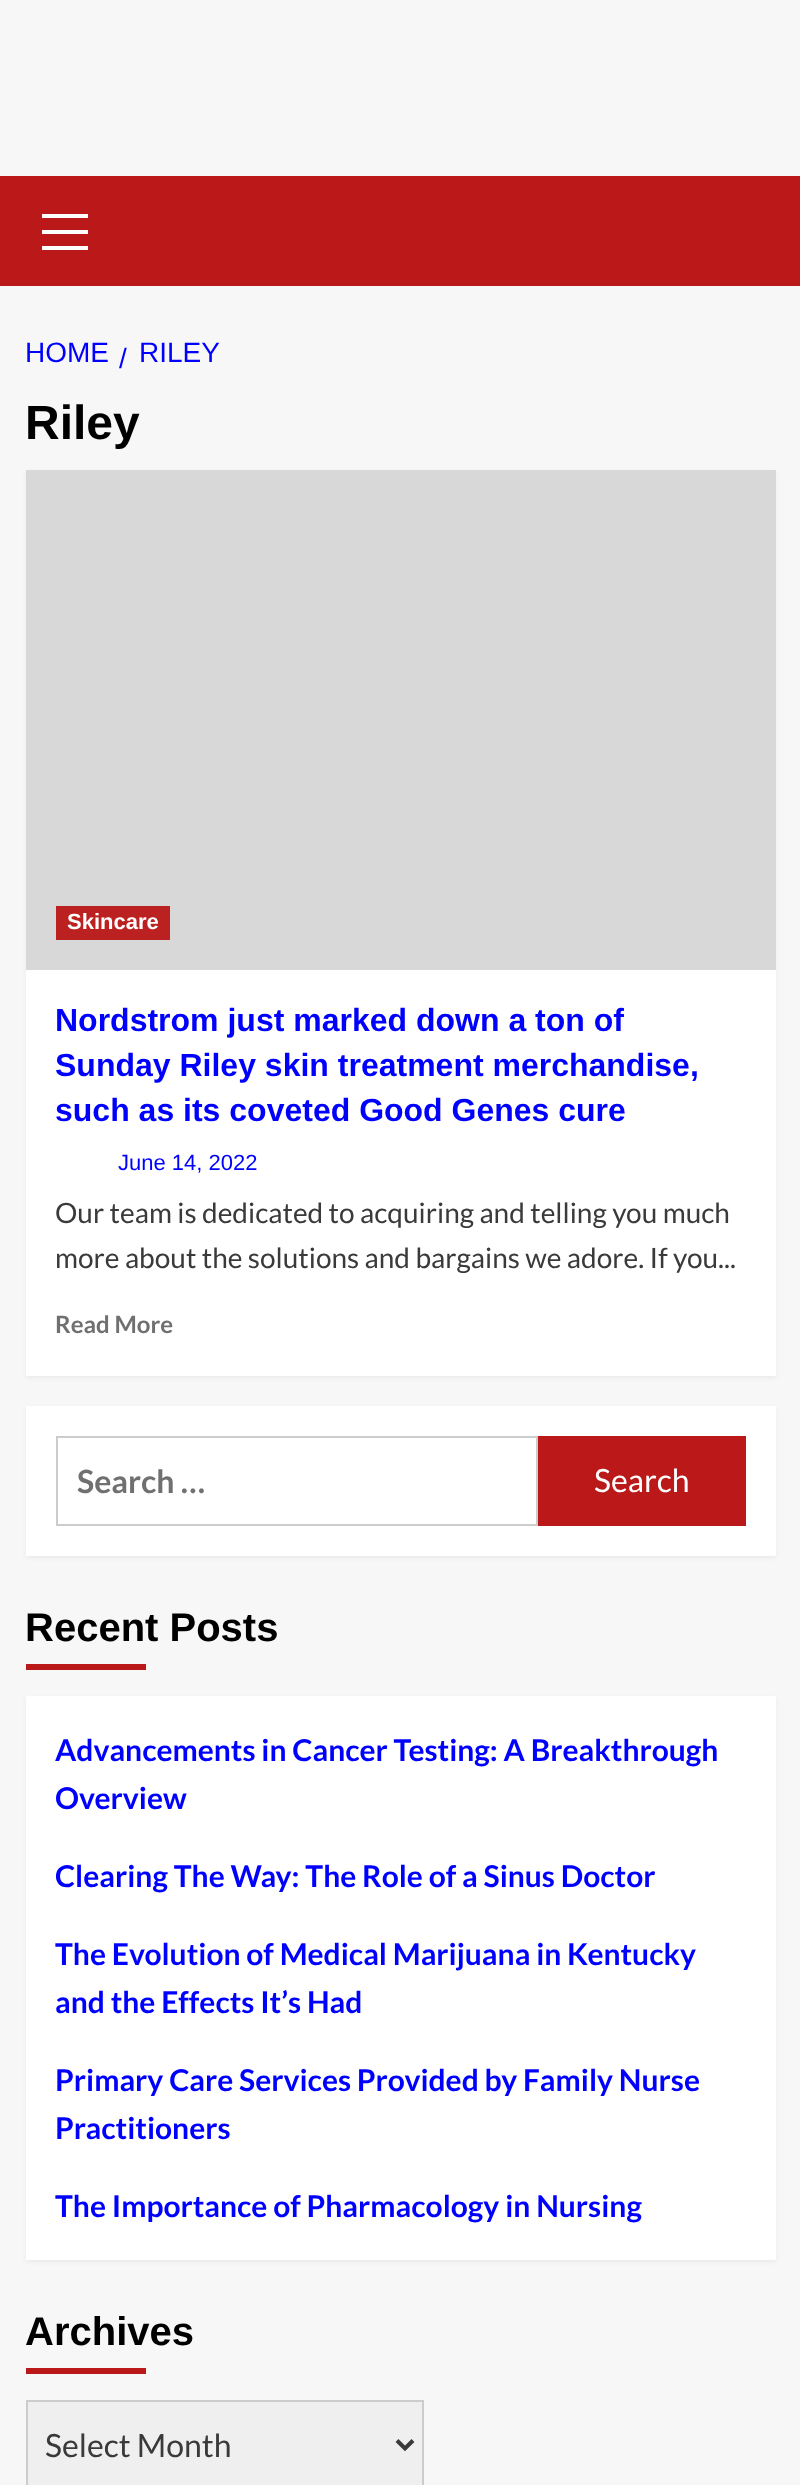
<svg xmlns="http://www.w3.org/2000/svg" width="800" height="2485">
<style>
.a{font:28px Liberation Sans;fill:#00f}
.b{font:bold 48px Liberation Sans;fill:#000}
.c{font:bold 22px Liberation Sans;fill:#fdfdfd}
.d{font:bold 32px Liberation Sans;fill:#00f}
.e{font:22px Liberation Sans;fill:#00f}
.f{font:28px Lato;fill:#3a3a3a}
.g{font:bold 24px Lato;fill:#707070}
.h{font:bold 32px Lato;fill:#707070}
.i{font:32px Lato;fill:#fdfdfd}
.j{font:bold 40px Liberation Sans;fill:#000}
.k{font:bold 30px Lato;fill:#00f}
.l{font:32px Lato;fill:#3a3a3a}
</style>
<rect width="100%" height="100%" fill="#f7f7f7"/>
<path fill="#bb1919" d="M0 176h800v110H0z"/>
<path fill="#fff" d="M42 230h46v4H42z"/>
<path fill="#fff" d="M42 214h46v4H42z"/>
<path fill="#fff" d="M42 246h46v4H42z"/>
<path fill="#0000000d" filter="blur(2px)" d="M26 472h750v906H26z"/>
<path fill="#fff" d="M26 970h750v406H26z"/>
<path fill="#d8d8d8" d="M26 470h750v500H26z"/>
<path fill="#bc2121" d="M56 906h114v34H56z"/>
<path fill="#0000000d" filter="blur(2px)" d="M26 1408h750v150H26z"/>
<path fill="#fff" d="M26 1406h750v150H26z"/>
<path fill="none" stroke="#ccc" stroke-width="2" d="M57 1437h480v88H57z"/>
<path fill="#bb1919" d="M538 1436h208v90H538z"/>
<path fill="#bb1919" d="M26 1664h120v6H26z"/>
<path fill="#0000000d" filter="blur(2px)" d="M26 1698h750v564H26z"/>
<path fill="#fff" d="M26 1696h750v564H26z"/>
<path fill="#bb1919" d="M26 2368h120v6H26z"/>
<path fill="#efefef" stroke="#ccc" stroke-width="2" d="M27 2401h396v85H27z"/>
<path fill="none" stroke="#3a3a3a" stroke-width="4" d="M397 2440.5l8 8l8-8"/>
<text class="a" x="25" y="362">HOME</text>
<text class="a" x="119" y="368">/</text>
<text class="a" x="139" y="362">RILEY</text>
<text class="b" x="25" y="439">Riley</text>
<text class="c" x="67" y="929">Skincare</text>
<text class="d" x="55" y="1031">Nordstrom just marked down a ton of</text>
<text class="d" x="55" y="1076">Sunday Riley skin treatment merchandise,</text>
<text class="d" x="55" y="1121">such as its coveted Good Genes cure</text>
<text class="e" x="118" y="1170">June 14, 2022</text>
<text class="f" x="55" y="1223">Our team is dedicated to acquiring and telling you much</text>
<text class="f" x="55" y="1268">more about the solutions and bargains we adore. If you...</text>
<text class="g" x="55" y="1333">Read More</text>
<text class="h" x="77" y="1493">Search …</text>
<text class="i" x="594" y="1492">Search</text>
<text class="j" x="25" y="1641">Recent Posts</text>
<text class="k" x="55" y="1761">Advancements in Cancer Testing: A Breakthrough</text>
<text class="k" x="55" y="1809">Overview</text>
<text class="k" x="55" y="1887">Clearing The Way: The Role of a Sinus Doctor</text>
<text class="k" x="55" y="1965">The Evolution of Medical Marijuana in Kentucky</text>
<text class="k" x="55" y="2013">and the Effects It’s Had</text>
<text class="k" x="55" y="2091">Primary Care Services Provided by Family Nurse</text>
<text class="k" x="55" y="2139">Practitioners</text>
<text class="k" x="55" y="2217">The Importance of Pharmacology in Nursing</text>
<text class="j" x="25" y="2345">Archives</text>
<text class="l" x="45" y="2457">Select Month</text>
</svg>
